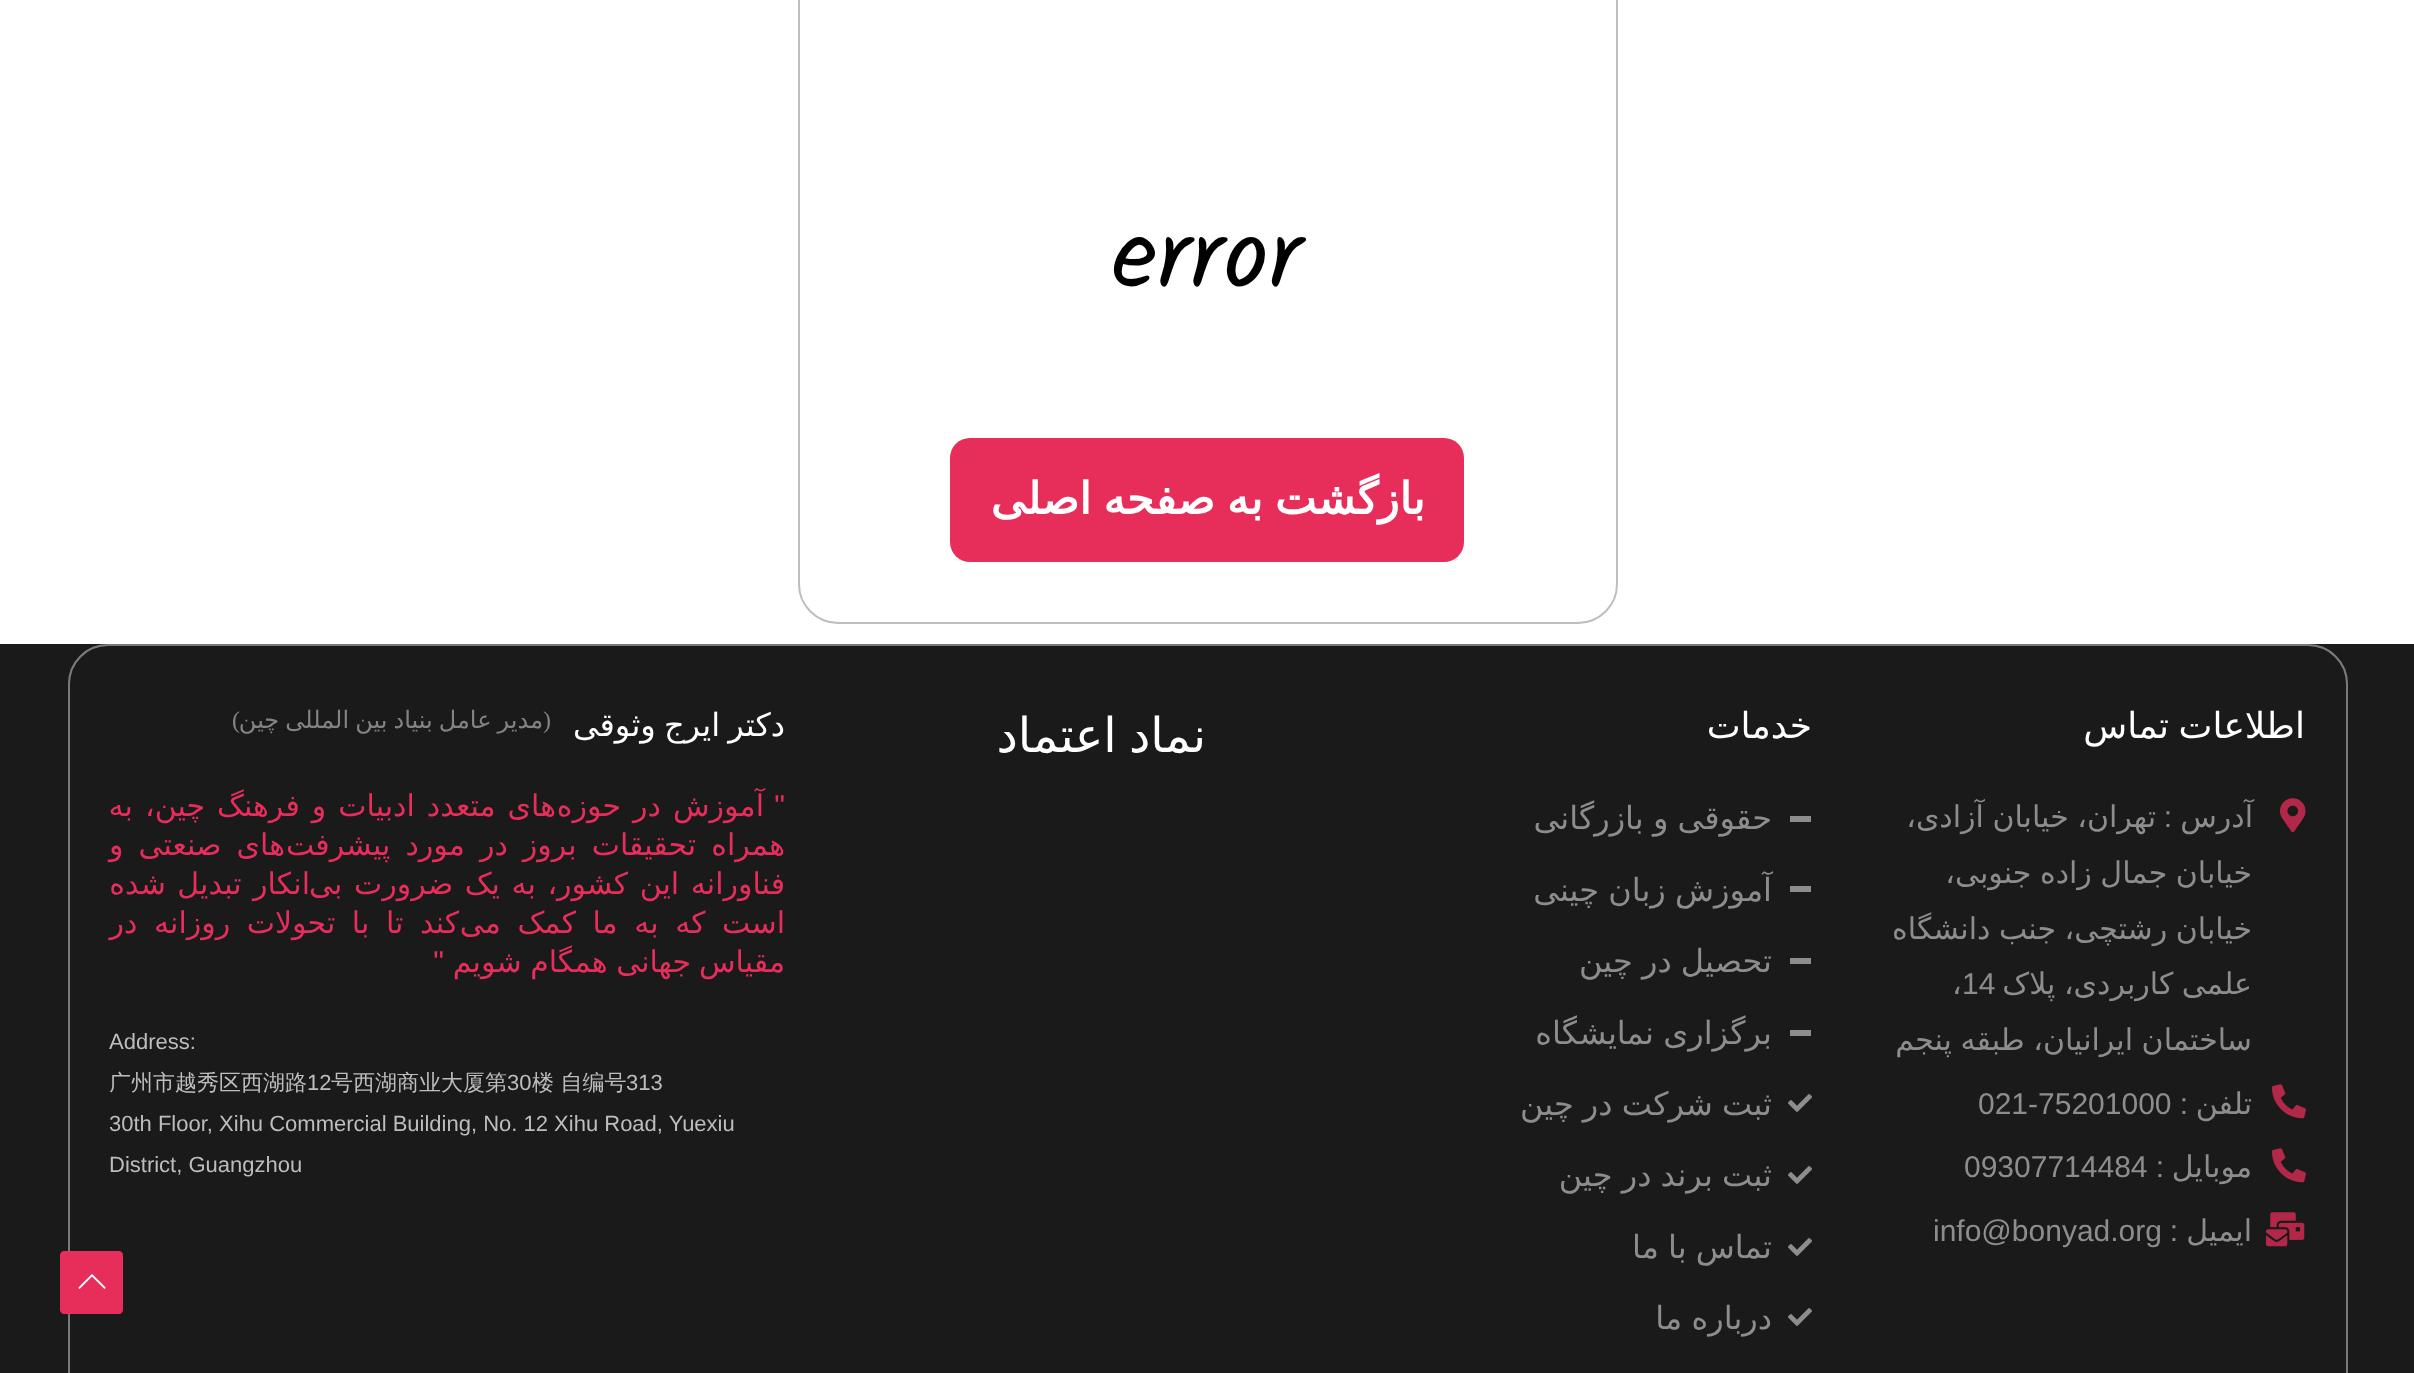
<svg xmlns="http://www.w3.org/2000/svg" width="2414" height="1373">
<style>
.a{font:100px Kalam;fill:#000}
.b{font:bold 44px DejaVu Sans;direction:rtl;fill:#fff}
.c{font:36px DejaVu Sans;direction:rtl;fill:#fff}
.d{font:30px DejaVu Sans;direction:rtl;fill:#8d8d8d}
.e{font:30px Liberation Sans;direction:rtl;fill:#8d8d8d}
.f{font:30px Liberation Sans;fill:#8d8d8d}
.g{font:30px DejaVu Sans;fill:#8d8d8d}
.h{font:32px DejaVu Sans;direction:rtl;fill:#8d8d8d}
.i{font:48px DejaVu Sans;direction:rtl;fill:#fff}
.j{font:32px DejaVu Sans;direction:rtl;fill:#fff}
.k{font:24px Liberation Serif;direction:rtl;fill:#838383}
.l{font:24px DejaVu Sans;direction:rtl;fill:#838383}
.m{font:30px Liberation Sans;direction:rtl;fill:#e72e5a}
.n{font:30px DejaVu Sans;direction:rtl;fill:#e72e5a}
.o{font:22px Liberation Sans;fill:#bebdbd}
.p{font:500 22px WenQuanYi Zen Hei;fill:#bebdbd}
</style>
<rect width="100%" height="100%" fill="#fff"/>
<rect fill="none" stroke="#bdbdbd" stroke-width="2" x="799" y="-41" width="818" height="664" rx="39"/>
<rect fill="#e72e5a" x="950" y="438" width="514" height="124" rx="20"/>
<path fill="#1a1a1a" d="M0 644h2414v729H0z"/>
<rect fill="none" stroke="#797979" stroke-width="2" x="69" y="645" width="2278" height="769" rx="39"/>
<rect fill="none" stroke="#79797980" stroke-width="2" x="69" y="645" width="2278" height="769" rx="39"/>
<image href="1.png" x="2280" y="798" width="26" height="35"/>
<image href="2.png" x="2272" y="1084" width="34" height="35"/>
<image href="2.png" x="2272" y="1148" width="34" height="35"/>
<image href="3.png" x="2266" y="1212" width="39" height="35"/>
<path fill="#8d8d8d" d="M1790 816h21v6H1790z"/>
<path fill="#8d8d8d" d="M1790 886h21v6H1790z"/>
<path fill="#8d8d8d" d="M1790 958h21v6H1790z"/>
<path fill="#8d8d8d" d="M1790 1030h21v6H1790z"/>
<image href="4.png" x="1788" y="1094" width="24" height="18"/>
<image href="4.png" x="1788" y="1166" width="24" height="18"/>
<image href="4.png" x="1788" y="1238" width="24" height="18"/>
<image href="4.png" x="1788" y="1308" width="24" height="18"/>
<path fill="#e72e5a" d="M119 1314h-55c-2 0-4-2-4-4v-55c0-2 2-4 4-4h55c2 0 4 2 4 4v55c0 2-2 4-4 4z"/>
<image href="5.png" x="78" y="1274" width="28" height="15"/>
<text class="a" x="1112" y="288">error</text>
<text class="b" x="1425" y="514" word-spacing="-2">بازگشت به صفحه اصلی</text>
<text class="c" x="2305" y="738" word-spacing="-2">اطلاعات تماس</text>
<text class="d" x="2253" y="827">آدرس</text>
<text class="e" x="2172" y="827">:</text>
<text class="d" x="2156" y="827" word-spacing="-1">تهران، خیابان آزادی،</text>
<text class="d" x="2252" y="883" word-spacing="-1">خیابان جمال زاده جنوبی،</text>
<text class="d" x="2252" y="939" word-spacing="-1">خیابان رشتچی، جنب دانشگاه</text>
<text class="d" x="2252" y="994" word-spacing="-1">علمی کاربردی، پلاک</text>
<text class="f" x="1962" y="994">14</text>
<text class="g" x="1952" y="994">،</text>
<text class="d" x="2252" y="1050" word-spacing="-1">ساختمان ایرانیان، طبقه پنجم</text>
<text class="d" x="2252" y="1114">تلفن</text>
<text class="e" x="2188" y="1114">:</text>
<text class="f" x="1978" y="1114">021-75201000</text>
<text class="d" x="2252" y="1177">موبایل</text>
<text class="e" x="2164" y="1177">:</text>
<text class="f" x="1964" y="1177">09307714484</text>
<text class="d" x="2252" y="1241">ایمیل</text>
<text class="e" x="2178" y="1241">:</text>
<text class="f" x="1933" y="1241">info@bonyad.org</text>
<text class="c" x="1812" y="738">خدمات</text>
<text class="h" x="1772" y="829" word-spacing="-1">حقوقی و بازرگانی</text>
<text class="h" x="1772" y="901" word-spacing="-1">آموزش زبان چینی</text>
<text class="h" x="1772" y="972" word-spacing="-1">تحصیل در چین</text>
<text class="h" x="1772" y="1044" word-spacing="-1">برگزاری نمایشگاه</text>
<text class="h" x="1772" y="1115" word-spacing="-1">ثبت شرکت در چین</text>
<text class="h" x="1772" y="1186" word-spacing="-1">ثبت برند در چین</text>
<text class="h" x="1772" y="1258" word-spacing="-1">تماس با ما</text>
<text class="h" x="1772" y="1329" word-spacing="-1">درباره ما</text>
<text class="i" x="1206" y="752" word-spacing="-3">نماد اعتماد</text>
<text class="j" x="785" y="736" word-spacing="-2">دکتر ایرج وثوقی</text>
<text class="k" x="551" y="728">(</text>
<text class="l" x="543" y="728" word-spacing="-1.5">مدیر عامل بنیاد بین المللی چین</text>
<text class="k" x="240" y="728">)</text>
<text class="m" x="785" y="816">"</text>
<text class="n" x="764" y="816" word-spacing="2.5">آموزش در حوزه</text>
<text class="n" x="556" y="816" word-spacing="2.5">های متعدد ادبیات و فرهنگ چین، به</text>
<text class="n" x="785" y="855" word-spacing="5.5">همراه تحقیقات بروز در مورد پیشرفت</text>
<text class="n" x="285" y="855" word-spacing="5.5">های صنعتی و</text>
<text class="n" x="785" y="894" word-spacing="2">فناورانه این کشور، به یک ضرورت بی</text>
<text class="n" x="310" y="894" word-spacing="2">انکار تبدیل شده</text>
<text class="n" x="785" y="933" word-spacing="7">است که به ما کمک می</text>
<text class="n" x="459" y="933" word-spacing="7">کند تا با تحولات روزانه در</text>
<text class="n" x="785" y="972">مقیاس</text>
<text class="n" x="691" y="972" word-spacing="-1">جهانی همگام شویم</text>
<text class="m" x="444" y="972">"</text>
<text class="o" x="109" y="1049">Address:</text>
<text class="o" x="626" y="1090">313</text>
<text class="p" x="532" y="1090">楼 自编号</text>
<text class="o" x="507" y="1090">30</text>
<text class="p" x="331" y="1090">号西湖商业大厦第</text>
<text class="o" x="307" y="1090">12</text>
<text class="p" x="109" y="1090">广州市越秀区西湖路</text>
<text class="o" x="109" y="1131">30th Floor, Xihu Commercial Building, No. 12 Xihu Road, Yuexiu</text>
<text class="o" x="109" y="1172">District, Guangzhou</text>
</svg>
